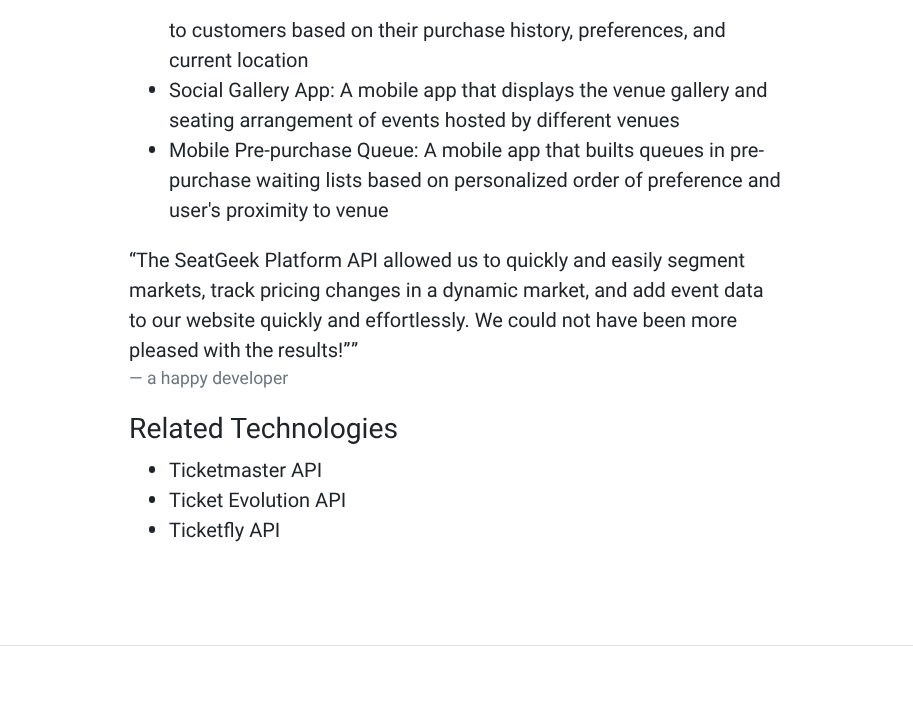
<svg xmlns="http://www.w3.org/2000/svg" width="913" height="725">
<style>
.a{font:20px Roboto;fill:#212529}
.b{font:17.5px Roboto;fill:#6c757d}
.c{font:28.25px Roboto;fill:#212529}
</style>
<rect width="100%" height="100%" fill="#fff"/>
<rect fill="#212529" x="149" y="86" width="6" height="7" rx="3"/>
<rect fill="#212529" x="149" y="146" width="6" height="7" rx="3"/>
<rect fill="#212529" x="149" y="466" width="6" height="7" rx="3"/>
<rect fill="#212529" x="149" y="496" width="6" height="7" rx="3"/>
<rect fill="#212529" x="149" y="526" width="6" height="7" rx="3"/>
<path fill="#dee2e6" d="M0 645h913v1H0z"/>
<text class="a" x="169" y="37">to customers based on their purchase history, preferences, and</text>
<text class="a" x="169" y="67">current location</text>
<text class="a" x="169" y="97">Social Gallery App: A mobile app that displays the venue gallery and</text>
<text class="a" x="169" y="127">seating arrangement of events hosted by different venues</text>
<text class="a" x="169" y="157">Mobile Pre-purchase Queue: A mobile app that builts queues in pre-</text>
<text class="a" x="169" y="187">purchase waiting lists based on personalized order of preference and</text>
<text class="a" x="169" y="217">user's proximity to venue</text>
<text class="a" x="129" y="267">“The SeatGeek Platform API allowed us to quickly and easily segment</text>
<text class="a" x="129" y="297">markets, track pricing changes in a dynamic market, and add event data</text>
<text class="a" x="129" y="327">to our website quickly and effortlessly. We could not have been more</text>
<text class="a" x="129" y="357" word-spacing="-0.5">pleased with the results!”</text>
<text class="a" x="351" y="357">”</text>
<text class="b" x="129" y="384">— a happy developer</text>
<text class="c" x="129" y="438">Related Technologies</text>
<text class="a" x="169" y="477">Ticketmaster API</text>
<text class="a" x="169" y="507">Ticket Evolution API</text>
<text class="a" x="169" y="537">Ticketfly API</text>
</svg>
